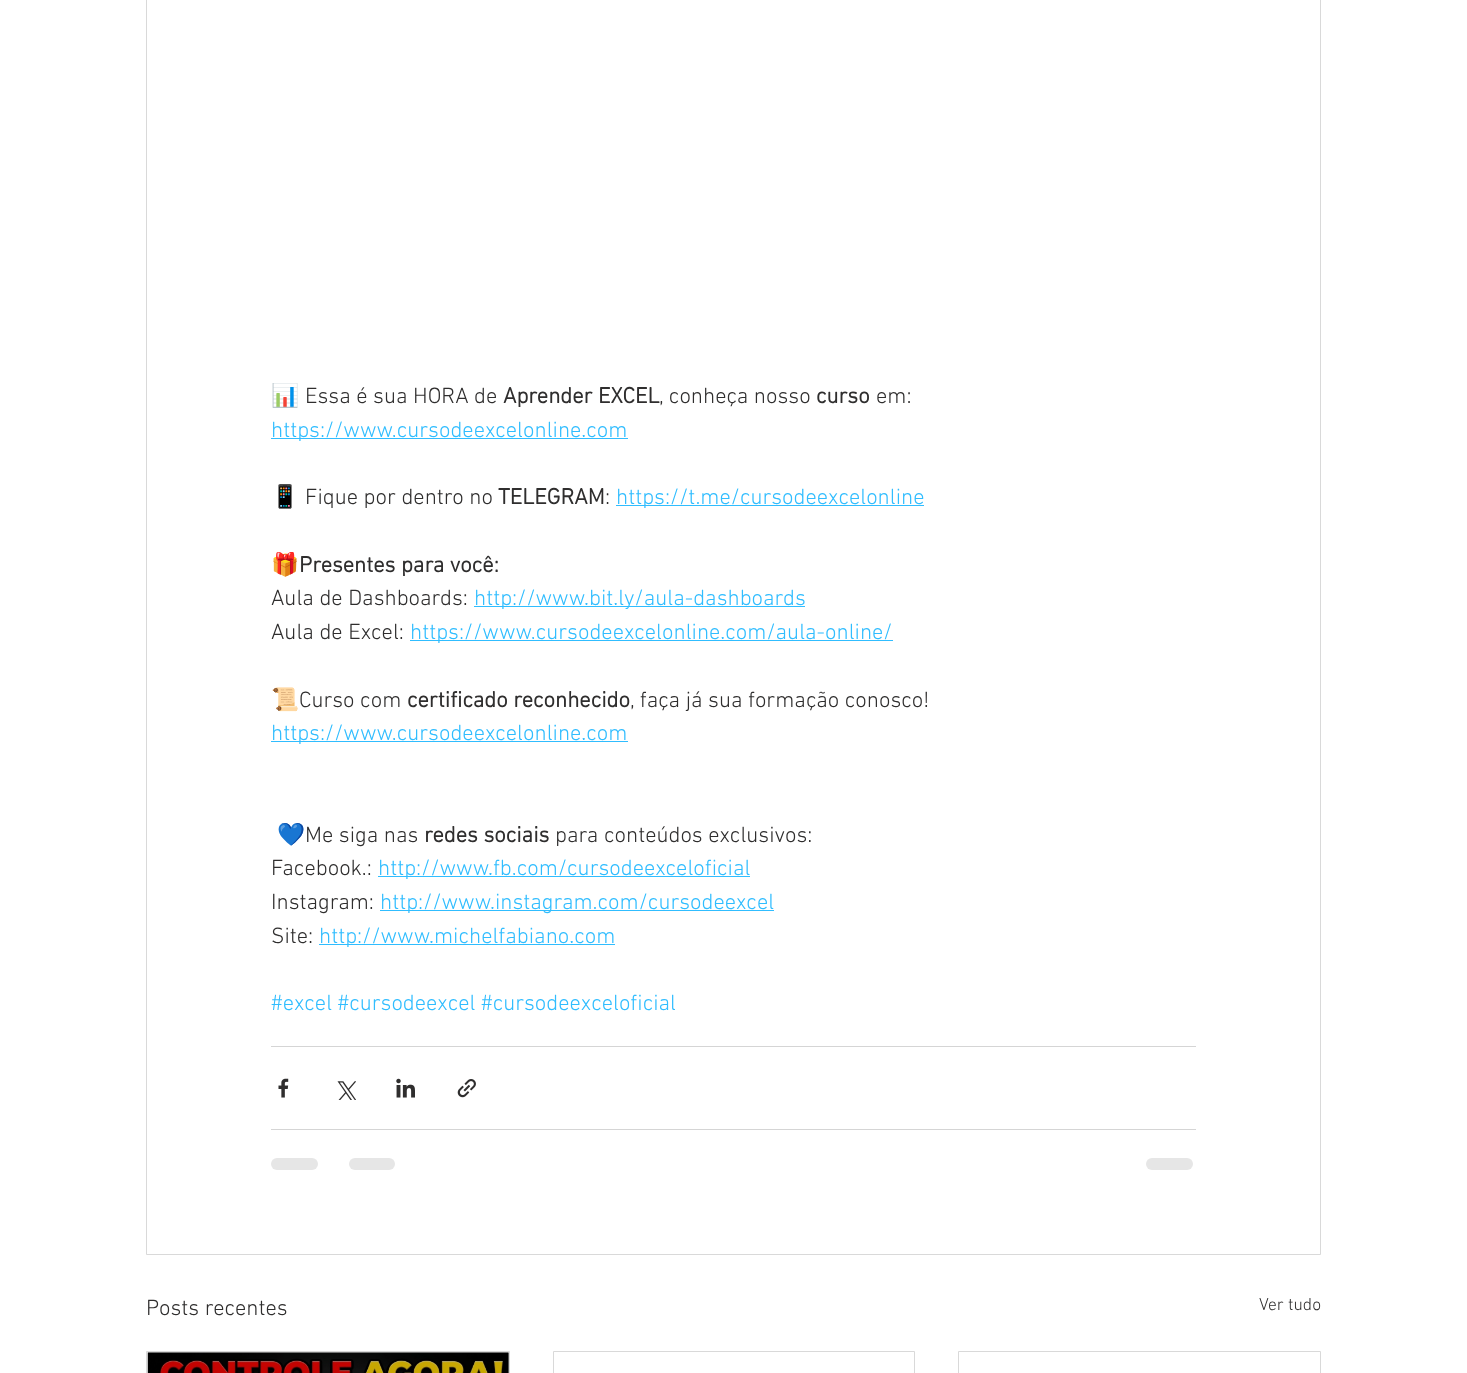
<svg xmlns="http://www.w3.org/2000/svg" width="1467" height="1373">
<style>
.a{font:22.5px Noto Color Emoji;fill:#2f2e2e}
.b{font:300 22.5px 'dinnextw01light';fill:#2f2e2e}
.c{font:bold 22.5px 'dinnextw01light';fill:#2f2e2e}
.d{font:300 22.5px 'dinnextw01light';fill:#30bdff}
.e{font:bold 22.5px Noto Color Emoji;fill:#2f2e2e}
.f{font:300 17.5px 'dinnextw01light';fill:#2f2e2e}
</style>
<rect width="100%" height="100%" fill="#fff"/>
<path fill="#ccc" d="M508 1353h1v20H508z"/>
<path fill="none" stroke="#d9d9d9" d="M146.5 -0.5h1174v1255H146.5z"/>
<path fill="#30bdff" d="M271 438h357v1H271z"/>
<path fill="#30bdff" d="M616 505h308v1H616z"/>
<path fill="#30bdff" d="M474 606h331v1H474z"/>
<path fill="#30bdff" d="M410 640h483v1H410z"/>
<path fill="#30bdff" d="M271 741h357v1H271z"/>
<path fill="#30bdff" d="M378 876h372v1H378z"/>
<path fill="#30bdff" d="M380 910h394v1H380z"/>
<path fill="#30bdff" d="M319 944h296v1H319z"/>
<path fill="#d5d5d5" d="M271 1046h925v1H271z"/>
<image href="1.png" x="278" y="1078" width="11" height="20"/>
<image href="2.png" x="337" y="1081" width="19" height="19"/>
<image href="3.png" x="396" y="1078" width="19" height="20"/>
<image href="4.png" x="457" y="1079" width="19" height="19"/>
<path fill="#d5d5d5" d="M271 1129h925v1H271z"/>
<rect fill="#e6e6e6" x="271" y="1158" width="47" height="12" rx="6"/>
<rect fill="#e6e6e6" x="349" y="1158" width="46" height="12" rx="6"/>
<rect fill="#e6e6e6" x="1146" y="1158" width="47" height="12" rx="6"/>
<path fill="none" stroke="#d9d9d9" d="M146.5 1351.5h363v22H146.5z"/>
<image href="5.png" x="147" y="1352" width="362" height="21"/>
<path fill="none" stroke="#d9d9d9" d="M553.5 1351.5h361v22H553.5z"/>
<path fill="none" stroke="#d9d9d9" d="M958.5 1351.5h362v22H958.5z"/>
<text class="a" x="271" y="403">📊</text>
<text class="b" x="305" y="403">Essa é sua HORA de</text>
<text class="c" x="503" y="403">Aprender EXCEL</text>
<text class="b" x="659" y="403">, conheça nosso</text>
<text class="c" x="816" y="403">curso</text>
<text class="b" x="876" y="403">em:</text>
<text class="d" x="271" y="437">https://www.cursodeexcelonline.com</text>
<text class="a" x="271" y="504">📱</text>
<text class="b" x="305" y="504">Fique por dentro no</text>
<text class="c" x="498" y="504">TELEGRAM</text>
<text class="b" x="605" y="504">:</text>
<text class="d" x="616" y="504">https://t.me/cursodeexcelonline</text>
<text class="e" x="271" y="572">🎁</text>
<text class="c" x="299" y="572">Presentes para você:</text>
<text class="b" x="271" y="605">Aula de Dashboards:</text>
<text class="d" x="474" y="605">http://www.bit.ly/aula-dashboards</text>
<text class="b" x="271" y="639">Aula de Excel:</text>
<text class="d" x="410" y="639">https://www.cursodeexcelonline.com/aula-online/</text>
<text class="a" x="271" y="707">📜</text>
<text class="b" x="299" y="707">Curso com</text>
<text class="c" x="407" y="707">certificado reconhecido</text>
<text class="b" x="630" y="707">, faça já sua formação conosco!</text>
<text class="d" x="271" y="740">https://www.cursodeexcelonline.com</text>
<text class="a" x="277" y="842">💙</text>
<text class="b" x="305" y="842">Me siga nas</text>
<text class="c" x="424" y="842">redes sociais</text>
<text class="b" x="555" y="842">para conteúdos exclusivos:</text>
<text class="b" x="271" y="875">Facebook.:</text>
<text class="d" x="378" y="875">http://www.fb.com/cursodeexceloficial</text>
<text class="b" x="271" y="909">Instagram:</text>
<text class="d" x="380" y="909">http://www.instagram.com/cursodeexcel</text>
<text class="b" x="271" y="943">Site:</text>
<text class="d" x="319" y="943">http://www.michelfabiano.com</text>
<text class="d" x="271" y="1010">#excel #cursodeexcel #cursodeexceloficial</text>
<text class="b" x="146" y="1315">Posts recentes</text>
<text class="f" x="1259" y="1310">Ver tudo</text>
</svg>
